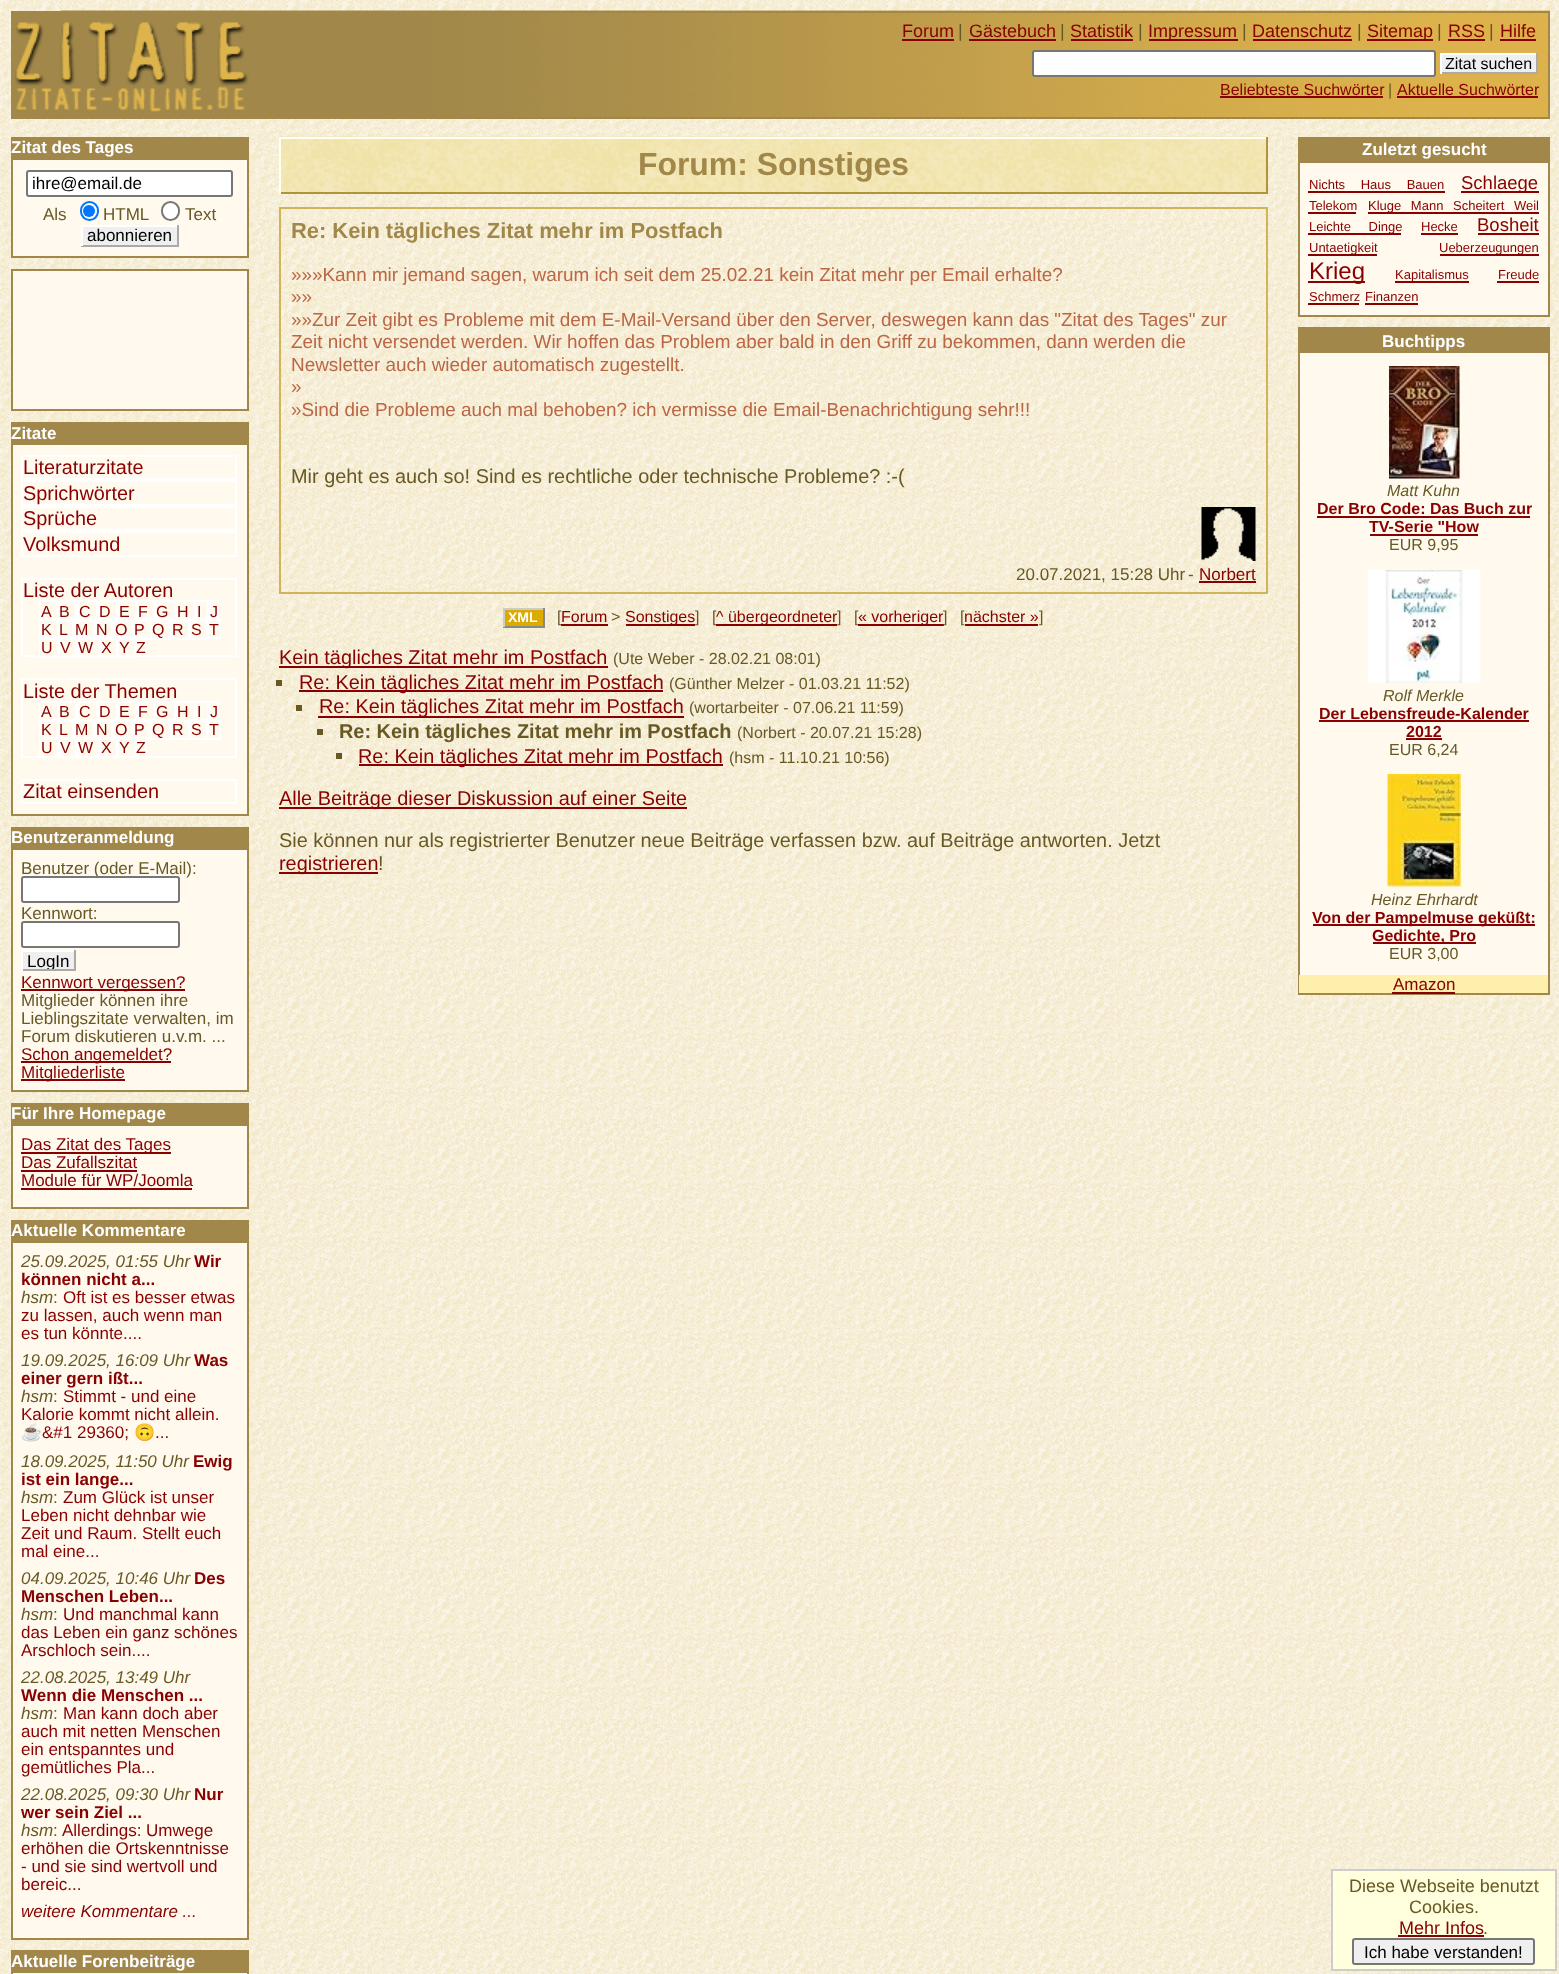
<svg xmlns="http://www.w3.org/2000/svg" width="1559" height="1974">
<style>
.a{font:18px Liberation Sans;fill:#800}
.b{font:18px Liberation Sans;fill:#685924}
.c{font:16px Liberation Sans;fill:#000}
.d{font:16px Liberation Sans;fill:#800}
.e{font:16px Liberation Sans;fill:#685924}
.f{font:bold 17px Liberation Sans;fill:#fff}
.g{font:17px Liberation Sans;fill:#000}
.h{font:17px Liberation Sans;fill:#685924}
.i{font:19.9px Liberation Sans;fill:#800}
.j{font:17px Liberation Sans;fill:#800}
.k{font:italic 17px Liberation Sans;fill:#685924}
.l{font:bold 17px Liberation Sans;fill:#800}
.m{font:17px Noto Color Emoji;fill:#800}
.n{font:italic 17px Liberation Sans;fill:#800}
.o{font:bold 31.9px Liberation Sans;fill:#a1884a}
.p{font:13px Liberation Sans;fill:#800}
.q{font:18.5px Liberation Sans;fill:#800}
.r{font:24px Liberation Sans;fill:#800}
.s{font:italic 16px Liberation Sans;fill:#685924}
.t{font:bold 16px Liberation Sans;fill:#800}
.u{font:bold 21.9px Liberation Sans;fill:#a1884a}
.v{font:18.9px Liberation Sans;fill:#b64}
.w{font:19.9px Liberation Sans;fill:#685924}
.x{font:bold 14px Liberation Sans;fill:#fff}
.y{font:bold 19.9px Liberation Sans;fill:#685924}
</style>
<defs>
<clipPath id="clip1"><path d="M23 951h51v18H23z"/></clipPath>
</defs>
<rect width="100%" height="100%" fill="#fff"/>
<image href="1.png" x="0" y="0" width="1559" height="1974"/>
<path fill="#a1884a" d="M11 11h49v108H11z"/>
<image href="3.png" x="60" y="10" width="1490" height="107"/>
<path fill="none" stroke="#a1884a" stroke-width="2" d="M61 12h1488v106H61z"/>
<image href="2.png" x="15" y="22" width="234" height="90"/>
<path fill="#800" d="M902 39h52v2H902z"/>
<path fill="#800" d="M969 39h87v2H969z"/>
<path fill="#800" d="M1071 39h62v2H1071z"/>
<path fill="#800" d="M1149 39h89v2H1149z"/>
<path fill="#800" d="M1253 39h99v2H1253z"/>
<path fill="#800" d="M1367 39h66v2H1367z"/>
<path fill="#800" d="M1448 39h37v2H1448z"/>
<path fill="#800" d="M1500 39h36v2H1500z"/>
<rect fill="#fff" stroke="#767676" stroke-width="2" x="1033" y="51" width="402" height="25" rx="2"/>
<path fill="#efefef" d="M1442 55h94v17H1442z"/>
<path fill="#fff" d="M1440 53h98v2H1440z"/>
<path fill="#aaa" d="M1536 53h2v21H1536z"/>
<path fill="#aaa" d="M1440 72h98v2H1440z"/>
<path fill="#fff" d="M1440 53h2v21H1440z"/>
<path fill="#800" d="M1220 96h163v2H1220z"/>
<path fill="#800" d="M1397 96h141v2H1397z"/>
<path fill="#a1884a" d="M11 137h238v21H11z"/>
<path fill="#fff9ee" stroke="#a1884a" stroke-width="2" d="M12 159h236v98H12z"/>
<rect fill="#fff" stroke="#767676" stroke-width="2" x="27" y="171" width="205" height="25" rx="2"/>
<rect fill="#fff" stroke="#0075ff" stroke-width="2" x="81" y="202" width="17" height="18" rx="8.5"/>
<circle fill="#0075ff" cx="89" cy="211" r="6"/>
<rect fill="#fff" stroke="#767676" stroke-width="2" x="162" y="202" width="17" height="18" rx="8.5"/>
<path fill="#efefef" d="M83 227h94v18H83z"/>
<path fill="#fff" d="M81 225h98v2H81z"/>
<path fill="#aaa" d="M177 225h2v21H177z"/>
<path fill="#aaa" d="M81 245h98v2H81z"/>
<path fill="#fff" d="M81 225h2v21H81z"/>
<path fill="#fff9ee" stroke="#a1884a" stroke-width="2" d="M12 270h236v140H12z"/>
<path fill="#a1884a" d="M11 422h238v21H11z"/>
<path fill="#fff9ee" stroke="#a1884a" stroke-width="2" d="M12 444h236v371H12z"/>
<path fill="none" stroke="#fff" stroke-width="2" d="M22 456h214v23H22z"/>
<path fill="none" stroke="#fff" stroke-width="2" d="M22 481h214v24H22z"/>
<path fill="none" stroke="#fff" stroke-width="2" d="M22 507h214v23H22z"/>
<path fill="none" stroke="#fff" stroke-width="2" d="M22 532h214v24H22z"/>
<path fill="none" stroke="#fff" stroke-width="2" d="M22 579h214v77H22z"/>
<path fill="#fff" d="M39 600h170v2H39z"/>
<path fill="#fff" d="M39 620h12v2H39z"/>
<path fill="#fff" d="M39 600h2v21H39z"/>
<path fill="#fff" d="M57 600h2v21H57z"/>
<path fill="#fff" d="M51 620h20v2H51z"/>
<path fill="#fff" d="M59 600h2v21H59z"/>
<path fill="#fff" d="M75 600h2v21H75z"/>
<path fill="#fff" d="M71 620h19v2H71z"/>
<path fill="#fff" d="M77 600h2v21H77z"/>
<path fill="#fff" d="M96 600h2v21H96z"/>
<path fill="#fff" d="M90 620h20v2H90z"/>
<path fill="#fff" d="M98 600h2v21H98z"/>
<path fill="#fff" d="M116 600h1v21H116z"/>
<path fill="#fff" d="M110 620h19v2H110z"/>
<path fill="#fff" d="M117 600h2v21H117z"/>
<path fill="#fff" d="M135 600h2v21H135z"/>
<path fill="#fff" d="M129 620h18v2H129z"/>
<path fill="#fff" d="M137 600h2v21H137z"/>
<path fill="#fff" d="M153 600h2v21H153z"/>
<path fill="#fff" d="M147 620h21v2H147z"/>
<path fill="#fff" d="M155 600h2v21H155z"/>
<path fill="#fff" d="M174 600h2v21H174z"/>
<path fill="#fff" d="M168 620h21v2H168z"/>
<path fill="#fff" d="M176 600h2v21H176z"/>
<path fill="#fff" d="M194 600h1v21H194z"/>
<path fill="#fff" d="M189 620h12v2H189z"/>
<path fill="#fff" d="M195 600h2v21H195z"/>
<path fill="#fff" d="M207 600h2v21H207z"/>
<path fill="#fff" d="M201 620h8v2H201z"/>
<path fill="none" stroke="#fff" stroke-width="2" d="M210 601h8v19H210z"/>
<path fill="#fff" d="M39 618h168v2H39z"/>
<path fill="#fff" d="M39 638h14v2H39z"/>
<path fill="#fff" d="M39 618h2v21H39z"/>
<path fill="#fff" d="M57 618h2v21H57z"/>
<path fill="#fff" d="M53 638h15v2H53z"/>
<path fill="#fff" d="M59 618h2v21H59z"/>
<path fill="#fff" d="M72 618h2v21H72z"/>
<path fill="#fff" d="M68 638h21v2H68z"/>
<path fill="#fff" d="M74 618h2v21H74z"/>
<path fill="#fff" d="M93 618h2v21H93z"/>
<path fill="#fff" d="M89 638h18v2H89z"/>
<path fill="#fff" d="M95 618h2v21H95z"/>
<path fill="#fff" d="M111 618h2v21H111z"/>
<path fill="#fff" d="M107 638h21v2H107z"/>
<path fill="#fff" d="M113 618h2v21H113z"/>
<path fill="#fff" d="M132 618h2v21H132z"/>
<path fill="#fff" d="M128 638h18v2H128z"/>
<path fill="#fff" d="M134 618h2v21H134z"/>
<path fill="#fff" d="M149 618h1v21H149z"/>
<path fill="#fff" d="M146 638h19v2H146z"/>
<path fill="#fff" d="M150 618h2v21H150z"/>
<path fill="#fff" d="M170 618h1v21H170z"/>
<path fill="#fff" d="M165 638h18v2H165z"/>
<path fill="#fff" d="M171 618h2v21H171z"/>
<path fill="#fff" d="M188 618h1v21H188z"/>
<path fill="#fff" d="M183 638h18v2H183z"/>
<path fill="#fff" d="M189 618h2v21H189z"/>
<path fill="#fff" d="M206 618h1v21H206z"/>
<path fill="#fff" d="M201 638h6v2H201z"/>
<path fill="none" stroke="#fff" stroke-width="2" d="M208 619h12v19H208z"/>
<path fill="#fff" d="M39 636h96v2H39z"/>
<path fill="#fff" d="M39 657h96v1H39z"/>
<path fill="#fff" d="M39 636h2v21H39z"/>
<path fill="#fff" d="M57 636h4v21H57z"/>
<path fill="#fff" d="M75 636h4v21H75z"/>
<path fill="#fff" d="M98 636h3v21H98z"/>
<path fill="#fff" d="M116 636h3v21H116z"/>
<path fill="#fff" d="M134 636h1v21H134z"/>
<path fill="none" stroke="#fff" stroke-width="2" d="M136 637h10v19H136z"/>
<path fill="none" stroke="#fff" stroke-width="2" d="M22 679h214v78H22z"/>
<path fill="#fff" d="M39 701h170v2H39z"/>
<path fill="#fff" d="M39 721h12v1H39z"/>
<path fill="#fff" d="M39 701h2v21H39z"/>
<path fill="#fff" d="M57 701h2v21H57z"/>
<path fill="#fff" d="M51 721h20v1H51z"/>
<path fill="#fff" d="M59 701h2v21H59z"/>
<path fill="#fff" d="M75 701h2v21H75z"/>
<path fill="#fff" d="M71 721h19v1H71z"/>
<path fill="#fff" d="M77 701h2v21H77z"/>
<path fill="#fff" d="M96 701h2v21H96z"/>
<path fill="#fff" d="M90 721h20v1H90z"/>
<path fill="#fff" d="M98 701h2v21H98z"/>
<path fill="#fff" d="M116 701h1v21H116z"/>
<path fill="#fff" d="M110 721h19v1H110z"/>
<path fill="#fff" d="M117 701h2v21H117z"/>
<path fill="#fff" d="M135 701h2v21H135z"/>
<path fill="#fff" d="M129 721h18v1H129z"/>
<path fill="#fff" d="M137 701h2v21H137z"/>
<path fill="#fff" d="M153 701h2v21H153z"/>
<path fill="#fff" d="M147 721h21v1H147z"/>
<path fill="#fff" d="M155 701h2v21H155z"/>
<path fill="#fff" d="M174 701h2v21H174z"/>
<path fill="#fff" d="M168 721h21v1H168z"/>
<path fill="#fff" d="M176 701h2v21H176z"/>
<path fill="#fff" d="M194 701h1v21H194z"/>
<path fill="#fff" d="M189 721h12v1H189z"/>
<path fill="#fff" d="M195 701h2v21H195z"/>
<path fill="#fff" d="M207 701h2v21H207z"/>
<path fill="#fff" d="M201 721h8v1H201z"/>
<path fill="none" stroke="#fff" stroke-width="2" d="M210 702h8v19H210z"/>
<path fill="#fff" d="M39 719h168v2H39z"/>
<path fill="#fff" d="M39 739h14v1H39z"/>
<path fill="#fff" d="M39 719h2v21H39z"/>
<path fill="#fff" d="M57 719h2v21H57z"/>
<path fill="#fff" d="M53 739h15v1H53z"/>
<path fill="#fff" d="M59 719h2v21H59z"/>
<path fill="#fff" d="M72 719h2v21H72z"/>
<path fill="#fff" d="M68 739h21v1H68z"/>
<path fill="#fff" d="M74 719h2v21H74z"/>
<path fill="#fff" d="M93 719h2v21H93z"/>
<path fill="#fff" d="M89 739h18v1H89z"/>
<path fill="#fff" d="M95 719h2v21H95z"/>
<path fill="#fff" d="M111 719h2v21H111z"/>
<path fill="#fff" d="M107 739h21v1H107z"/>
<path fill="#fff" d="M113 719h2v21H113z"/>
<path fill="#fff" d="M132 719h2v21H132z"/>
<path fill="#fff" d="M128 739h18v1H128z"/>
<path fill="#fff" d="M134 719h2v21H134z"/>
<path fill="#fff" d="M149 719h1v21H149z"/>
<path fill="#fff" d="M146 738h19v2H146z"/>
<path fill="#fff" d="M150 719h2v21H150z"/>
<path fill="#fff" d="M170 719h1v21H170z"/>
<path fill="#fff" d="M165 738h18v2H165z"/>
<path fill="#fff" d="M171 719h2v21H171z"/>
<path fill="#fff" d="M188 719h1v21H188z"/>
<path fill="#fff" d="M183 738h18v2H183z"/>
<path fill="#fff" d="M189 719h2v21H189z"/>
<path fill="#fff" d="M206 719h1v21H206z"/>
<path fill="#fff" d="M201 738h6v2H201z"/>
<path fill="none" stroke="#fff" stroke-width="2" d="M208 720h12v19H208z"/>
<path fill="#fff" d="M39 737h96v2H39z"/>
<path fill="#fff" d="M39 737h2v21H39z"/>
<path fill="#fff" d="M57 737h4v21H57z"/>
<path fill="#fff" d="M75 737h4v21H75z"/>
<path fill="#fff" d="M98 737h3v21H98z"/>
<path fill="#fff" d="M116 737h3v21H116z"/>
<path fill="#fff" d="M134 737h1v21H134z"/>
<path fill="none" stroke="#fff" stroke-width="2" d="M136 738h10v19H136z"/>
<path fill="none" stroke="#fff" stroke-width="2" d="M22 780h214v23H22z"/>
<path fill="#a1884a" d="M11 827h238v21H11z"/>
<path fill="#fff9ee" stroke="#a1884a" stroke-width="2" d="M12 849h236v242H12z"/>
<rect fill="#fff" stroke="#767676" stroke-width="2" x="22" y="922" width="157" height="25" rx="2"/>
<path fill="#efefef" d="M23 952h51v17H23z"/>
<path fill="#fff" d="M21 950h54v2H21z"/>
<path fill="#aaa" d="M74 950h2v21H74z"/>
<path fill="#aaa" d="M21 969h54v2H21z"/>
<path fill="#fff" d="M21 950h2v21H21z"/>
<path fill="#800" d="M21 989h164v2H21z"/>
<path fill="#800" d="M21 1061h150v2H21z"/>
<path fill="#800" d="M21 1079h104v2H21z"/>
<path fill="#a1884a" d="M11 1103h238v21H11z"/>
<path fill="#fff9ee" stroke="#a1884a" stroke-width="2" d="M12 1125h236v83H12z"/>
<path fill="#800" d="M21 1152h150v2H21z"/>
<path fill="#800" d="M21 1170h116v2H21z"/>
<path fill="#800" d="M21 1188h171v2H21z"/>
<path fill="#a1884a" d="M11 1220h238v21H11z"/>
<path fill="#fff9ee" stroke="#a1884a" stroke-width="2" d="M12 1242h236v697H12z"/>
<path fill="#a1884a" d="M11 1950h238v21H11z"/>
<path fill="#fff9ee" stroke="#a1884a" stroke-width="2" d="M12 1972h236v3H12z"/>
<image href="4.png" x="279" y="136" width="989" height="56"/>
<path fill="#fffff3" d="M279 137h989v2H279z"/>
<path fill="#ae953c" d="M1266 137h2v57H1266z"/>
<path fill="#ae953c" d="M279 192h989v2H279z"/>
<path fill="#fffff3" d="M279 137h2v57H279z"/>
<path fill="#a1884a" d="M1298 137h252v24H1298z"/>
<path fill="#fff9ee" stroke="#a1884a" stroke-width="2" d="M1299 162h250v154H1299z"/>
<path fill="#800" d="M1308 191h137v2H1308z"/>
<path fill="#800" d="M1461 191h78v2H1461z"/>
<path fill="#800" d="M1308 212h48v2H1308z"/>
<path fill="#800" d="M1368 212h171v2H1368z"/>
<path fill="#800" d="M1308 233h93v2H1308z"/>
<path fill="#800" d="M1421 233h37v2H1421z"/>
<path fill="#800" d="M1478 233h61v2H1478z"/>
<path fill="#800" d="M1308 254h69v2H1308z"/>
<path fill="#800" d="M1440 254h99v2H1440z"/>
<path fill="#800" d="M1308 281h57v2H1308z"/>
<path fill="#800" d="M1395 281h74v2H1395z"/>
<path fill="#800" d="M1497 281h42v2H1497z"/>
<path fill="#800" d="M1308 303h51v2H1308z"/>
<path fill="#800" d="M1365 303h53v2H1365z"/>
<path fill="#fff9ee" d="M1300 353h248v622H1300z"/>
<path fill="none" stroke="#a1884a" stroke-width="2" d="M1299 328h250v666H1299z"/>
<path fill="#a1884a" d="M1300 329h248v24H1300z"/>
<image href="5.png" x="1389" y="366" width="71" height="113"/>
<path fill="#800" d="M1317 516h213v2H1317z"/>
<path fill="#800" d="M1370 534h108v2H1370z"/>
<image href="6.png" x="1368" y="570" width="113" height="113"/>
<path fill="#800" d="M1319 720h210v2H1319z"/>
<path fill="#800" d="M1406 738h36v2H1406z"/>
<image href="7.png" x="1387" y="774" width="74" height="113"/>
<path fill="#800" d="M1313 924h222v2H1313z"/>
<path fill="#800" d="M1373 942h103v2H1373z"/>
<path fill="#ffefac" d="M1299 975h249v18H1299z"/>
<path fill="#800" d="M1392 992h63v2H1392z"/>
<path fill="none" stroke="#ceb55c" stroke-width="2" d="M280 208h987v385H280z"/>
<image href="8.png" x="1201" y="507" width="55" height="54"/>
<path fill="#800" d="M1199 581h57v2H1199z"/>
<path fill="#da0" d="M505 610h38v16H505z"/>
<path fill="#ccc" d="M503 608h42v2H503z"/>
<path fill="#888" d="M543 608h2v19H543z"/>
<path fill="#888" d="M503 626h42v2H503z"/>
<path fill="#ccc" d="M503 608h2v19H503z"/>
<path fill="#800" d="M561 624h47v2H561z"/>
<path fill="#800" d="M626 624h69v2H626z"/>
<path fill="#800" d="M965 624h73v2H965z"/>
<path fill="#800" d="M279 666h329v2H279z"/>
<path fill="#685924" d="M276 680h6v6H276z"/>
<path fill="#800" d="M299 690h364v2H299z"/>
<path fill="#685924" d="M296 705h6v6H296z"/>
<path fill="#800" d="M318 716h366v2H318z"/>
<path fill="#685924" d="M317 729h6v6H317z"/>
<path fill="#685924" d="M336 753h6v6H336z"/>
<path fill="#800" d="M359 764h364v2H359z"/>
<path fill="#800" d="M279 807h408v2H279z"/>
<path fill="#800" d="M279 872h99v2H279z"/>
<path fill="#ffd" stroke="#ccc" stroke-width="2" d="M1332 1870h224v100H1332z"/>
<path fill="#800" d="M1398 1935h86v2H1398z"/>
<rect fill="#efefef" stroke="#767676" stroke-width="2" x="1353" y="1939" width="181" height="25" rx="2"/>
<text class="a" x="902" y="37">Forum</text>
<text class="b" x="958" y="37">|</text>
<text class="a" x="969" y="37">Gästebuch</text>
<text class="b" x="1060" y="37">|</text>
<text class="a" x="1070" y="37">Statistik</text>
<text class="b" x="1138" y="37">|</text>
<text class="a" x="1148" y="37">Impressum</text>
<text class="b" x="1242" y="37">|</text>
<text class="a" x="1252" y="37">Datenschutz</text>
<text class="b" x="1357" y="37">|</text>
<text class="a" x="1367" y="37">Sitemap</text>
<text class="b" x="1437" y="37">|</text>
<text class="a" x="1448" y="37">RSS</text>
<text class="b" x="1489" y="37">|</text>
<text class="a" x="1500" y="37">Hilfe</text>
<text class="c" x="1445" y="69">Zitat suchen</text>
<text class="d" x="1220" y="95">Beliebteste Suchwörter</text>
<text class="e" x="1388" y="95">|</text>
<text class="d" x="1397" y="95">Aktuelle Suchwörter</text>
<text class="f" x="11" y="153">Zitat des Tages</text>
<text class="g" x="32" y="189">ihre@email.de</text>
<text class="h" x="43" y="220">Als</text>
<text class="h" x="103" y="220">HTML</text>
<text class="h" x="185" y="220">Text</text>
<text class="g" x="87" y="241">abonnieren</text>
<text class="f" x="11" y="439">Zitate</text>
<text class="i" x="23" y="474">Literaturzitate</text>
<text class="i" x="23" y="500">Sprichwörter</text>
<text class="i" x="23" y="525">Sprüche</text>
<text class="i" x="23" y="551">Volksmund</text>
<text class="i" x="23" y="597">Liste der Autoren</text>
<text class="d" x="41" y="617">A</text>
<text class="d" x="59" y="617">B</text>
<text class="d" x="79" y="617">C</text>
<text class="d" x="99" y="617">D</text>
<text class="d" x="119" y="617">E</text>
<text class="d" x="138" y="617">F</text>
<text class="d" x="156" y="617">G</text>
<text class="d" x="177" y="617">H</text>
<text class="d" x="197" y="617">I</text>
<text class="d" x="210" y="617">J</text>
<text class="d" x="41" y="635">K</text>
<text class="d" x="59" y="635">L</text>
<text class="d" x="75" y="635">M</text>
<text class="d" x="96" y="635">N</text>
<text class="d" x="115" y="635">O</text>
<text class="d" x="134" y="635">P</text>
<text class="d" x="152" y="635">Q</text>
<text class="d" x="172" y="635">R</text>
<text class="d" x="191" y="635">S</text>
<text class="d" x="209" y="635">T</text>
<text class="d" x="41" y="653">U</text>
<text class="d" x="60" y="653">V</text>
<text class="d" x="78" y="653">W</text>
<text class="d" x="101" y="653">X</text>
<text class="d" x="119" y="653">Y</text>
<text class="d" x="136" y="653">Z</text>
<text class="i" x="23" y="698">Liste der Themen</text>
<text class="d" x="41" y="717">A</text>
<text class="d" x="59" y="717">B</text>
<text class="d" x="79" y="717">C</text>
<text class="d" x="99" y="717">D</text>
<text class="d" x="119" y="717">E</text>
<text class="d" x="138" y="717">F</text>
<text class="d" x="156" y="717">G</text>
<text class="d" x="177" y="717">H</text>
<text class="d" x="197" y="717">I</text>
<text class="d" x="210" y="717">J</text>
<text class="d" x="41" y="735">K</text>
<text class="d" x="59" y="735">L</text>
<text class="d" x="75" y="735">M</text>
<text class="d" x="96" y="735">N</text>
<text class="d" x="115" y="735">O</text>
<text class="d" x="134" y="735">P</text>
<text class="d" x="152" y="735">Q</text>
<text class="d" x="172" y="735">R</text>
<text class="d" x="191" y="735">S</text>
<text class="d" x="209" y="735">T</text>
<text class="d" x="41" y="753">U</text>
<text class="d" x="60" y="753">V</text>
<text class="d" x="78" y="753">W</text>
<text class="d" x="101" y="753">X</text>
<text class="d" x="119" y="753">Y</text>
<text class="d" x="136" y="753">Z</text>
<text class="i" x="23" y="798">Zitat einsenden</text>
<text class="f" x="11" y="843">Benutzeranmeldung</text>
<text class="h" x="21" y="874">Benutzer (oder E-Mail):</text>
<rect fill="#fff" stroke="#767676" stroke-width="2" x="22" y="877" width="157" height="25" rx="2"/>
<text class="h" x="21" y="919">Kennwort:</text>
<g clip-path="url(#clip1)">
<text class="g" x="27" y="967">LogIn</text>
</g>
<text class="j" x="21" y="988">Kennwort vergessen?</text>
<text class="h" x="21" y="1006">Mitglieder können ihre</text>
<text class="h" x="21" y="1024">Lieblingszitate verwalten, im</text>
<text class="h" x="21" y="1042">Forum diskutieren u.v.m. ...</text>
<text class="j" x="21" y="1060">Schon angemeldet?</text>
<text class="j" x="21" y="1078">Mitgliederliste</text>
<text class="f" x="11" y="1119">Für Ihre Homepage</text>
<text class="j" x="21" y="1150">Das Zitat des Tages</text>
<text class="j" x="21" y="1168">Das Zufallszitat</text>
<text class="j" x="21" y="1186">Module für WP/Joomla</text>
<text class="f" x="11" y="1236">Aktuelle Kommentare</text>
<text class="k" x="21" y="1267">25.09.2025, 01:55 Uhr</text>
<text class="l" x="194" y="1267">Wir</text>
<text class="l" x="21" y="1285">können nicht a...</text>
<text class="k" x="21" y="1303">hsm</text>
<text class="h" x="53" y="1303">:</text>
<text class="j" x="63" y="1303">Oft ist es besser etwas</text>
<text class="j" x="21" y="1321">zu lassen, auch wenn man</text>
<text class="j" x="21" y="1339">es tun könnte....</text>
<text class="k" x="21" y="1366">19.09.2025, 16:09 Uhr</text>
<text class="l" x="194" y="1366">Was</text>
<text class="l" x="21" y="1384">einer gern ißt...</text>
<text class="k" x="21" y="1402">hsm</text>
<text class="h" x="53" y="1402">:</text>
<text class="j" x="63" y="1402">Stimmt - und eine</text>
<text class="j" x="21" y="1420">Kalorie kommt nicht allein.</text>
<text class="m" x="21" y="1438">☕</text>
<text class="j" x="42" y="1438">&amp;#1 29360;</text>
<text class="m" x="134" y="1438">🙃</text>
<text class="j" x="155" y="1438">...</text>
<text class="k" x="21" y="1467">18.09.2025, 11:50 Uhr</text>
<text class="l" x="193" y="1467">Ewig</text>
<text class="l" x="21" y="1485">ist ein lange...</text>
<text class="k" x="21" y="1503">hsm</text>
<text class="h" x="53" y="1503">:</text>
<text class="j" x="63" y="1503">Zum Glück ist unser</text>
<text class="j" x="21" y="1521">Leben nicht dehnbar wie</text>
<text class="j" x="21" y="1539">Zeit und Raum. Stellt euch</text>
<text class="j" x="21" y="1557">mal eine...</text>
<text class="k" x="21" y="1584">04.09.2025, 10:46 Uhr</text>
<text class="l" x="194" y="1584">Des</text>
<text class="l" x="21" y="1602">Menschen Leben...</text>
<text class="k" x="21" y="1620">hsm</text>
<text class="h" x="53" y="1620">:</text>
<text class="j" x="63" y="1620">Und manchmal kann</text>
<text class="j" x="21" y="1638">das Leben ein ganz schönes</text>
<text class="j" x="21" y="1656">Arschloch sein....</text>
<text class="k" x="21" y="1683">22.08.2025, 13:49 Uhr</text>
<text class="l" x="21" y="1701">Wenn die Menschen ...</text>
<text class="k" x="21" y="1719">hsm</text>
<text class="h" x="53" y="1719">:</text>
<text class="j" x="63" y="1719">Man kann doch aber</text>
<text class="j" x="21" y="1737">auch mit netten Menschen</text>
<text class="j" x="21" y="1755">ein entspanntes und</text>
<text class="j" x="21" y="1773">gemütliches Pla...</text>
<text class="k" x="21" y="1800">22.08.2025, 09:30 Uhr</text>
<text class="l" x="194" y="1800">Nur</text>
<text class="l" x="21" y="1818">wer sein Ziel ...</text>
<text class="k" x="21" y="1836">hsm</text>
<text class="h" x="53" y="1836">:</text>
<text class="j" x="62" y="1836">Allerdings: Umwege</text>
<text class="j" x="21" y="1854">erhöhen die Ortskenntnisse</text>
<text class="j" x="21" y="1872">- und sie sind wertvoll und</text>
<text class="j" x="21" y="1890">bereic...</text>
<text class="n" x="21" y="1917">weitere Kommentare ...</text>
<text class="f" x="11" y="1967">Aktuelle Forenbeiträge</text>
<text class="o" x="638" y="175">Forum: Sonstiges</text>
<text class="f" x="1362" y="155">Zuletzt gesucht</text>
<text class="p" x="1309" y="189" word-spacing="12">Nichts Haus Bauen</text>
<text class="q" x="1461" y="189">Schlaege</text>
<text class="p" x="1309" y="210">Telekom</text>
<text class="p" x="1368" y="210" word-spacing="6">Kluge Mann Scheitert Weil</text>
<text class="p" x="1309" y="231" word-spacing="14">Leichte Dinge</text>
<text class="p" x="1421" y="231">Hecke</text>
<text class="q" x="1477" y="231">Bosheit</text>
<text class="p" x="1309" y="252">Untaetigkeit</text>
<text class="p" x="1439" y="252">Ueberzeugungen</text>
<text class="r" x="1309" y="279">Krieg</text>
<text class="p" x="1395" y="279">Kapitalismus</text>
<text class="p" x="1498" y="279">Freude</text>
<text class="p" x="1309" y="301">Schmerz</text>
<text class="p" x="1365" y="301">Finanzen</text>
<text class="f" x="1382" y="347">Buchtipps</text>
<text class="s" x="1387" y="496">Matt Kuhn</text>
<text class="t" x="1317" y="514">Der Bro Code: Das Buch zur</text>
<text class="t" x="1369" y="532">TV-Serie "How</text>
<text class="e" x="1389" y="550">EUR 9,95</text>
<text class="s" x="1383" y="701">Rolf Merkle</text>
<text class="t" x="1319" y="719">Der Lebensfreude-Kalender</text>
<text class="t" x="1406" y="737">2012</text>
<text class="e" x="1389" y="755">EUR 6,24</text>
<text class="s" x="1371" y="905">Heinz Ehrhardt</text>
<text class="t" x="1312" y="923">Von der Pampelmuse geküßt:</text>
<text class="t" x="1372" y="941">Gedichte, Pro</text>
<text class="e" x="1389" y="959">EUR 3,00</text>
<text class="j" x="1393" y="990">Amazon</text>
<text class="u" x="291" y="238">Re: Kein tägliches Zitat mehr im Postfach</text>
<text class="v" x="291" y="281">»»»Kann mir jemand sagen, warum ich seit dem 25.02.21 kein Zitat mehr per Email erhalte?</text>
<text class="v" x="291" y="303">»»</text>
<text class="v" x="291" y="326">»»Zur Zeit gibt es Probleme mit dem E-Mail-Versand über den Server, deswegen kann das "Zitat des Tages" zur</text>
<text class="v" x="291" y="348">Zeit nicht versendet werden. Wir hoffen das Problem aber bald in den Griff zu bekommen, dann werden die</text>
<text class="v" x="291" y="371">Newsletter auch wieder automatisch zugestellt.</text>
<text class="v" x="291" y="393">»</text>
<text class="v" x="291" y="416">»Sind die Probleme auch mal behoben? ich vermisse die Email-Benachrichtigung sehr!!!</text>
<text class="w" x="291" y="483">Mir geht es auch so! Sind es rechtliche oder technische Probleme? :-(</text>
<text class="h" x="1016" y="580">20.07.2021, 15:28 Uhr</text>
<text class="h" x="1188" y="580">-</text>
<text class="j" x="1199" y="580">Norbert</text>
<text class="x" x="508" y="622">XML</text>
<text class="e" x="557" y="622">[</text>
<text class="d" x="561" y="622">Forum</text>
<text class="e" x="611" y="622">&gt;</text>
<text class="d" x="625" y="622">Sonstiges</text>
<text class="e" x="695" y="622">]</text>
<text class="e" x="712" y="622">[</text>
<path fill="#800" d="M716 624h121v2H716z"/>
<text class="d" x="716" y="622">^ übergeordneter</text>
<text class="e" x="837" y="622">]</text>
<text class="e" x="854" y="622">[</text>
<path fill="#800" d="M858 624h86v2H858z"/>
<text class="d" x="858" y="622">« vorheriger</text>
<text class="e" x="943" y="622">]</text>
<text class="e" x="960" y="622">[</text>
<text class="d" x="964" y="622">nächster »</text>
<text class="e" x="1039" y="622">]</text>
<text class="i" x="279" y="664">Kein tägliches Zitat mehr im Postfach</text>
<text class="e" x="613" y="664">(Ute Weber - 28.02.21 08:01)</text>
<text class="i" x="299" y="689">Re: Kein tägliches Zitat mehr im Postfach</text>
<text class="e" x="669" y="689">(Günther Melzer - 01.03.21 11:52)</text>
<text class="i" x="319" y="713">Re: Kein tägliches Zitat mehr im Postfach</text>
<text class="e" x="689" y="713">(wortarbeiter - 07.06.21 11:59)</text>
<text class="y" x="339" y="738">Re: Kein tägliches Zitat mehr im Postfach</text>
<text class="e" x="737" y="738">(Norbert - 20.07.21 15:28)</text>
<text class="i" x="358" y="763">Re: Kein tägliches Zitat mehr im Postfach</text>
<text class="e" x="729" y="763">(hsm - 11.10.21 10:56)</text>
<text class="i" x="279" y="805">Alle Beiträge dieser Diskussion auf einer Seite</text>
<text class="w" x="279" y="847">Sie können nur als registrierter Benutzer neue Beiträge verfassen bzw. auf Beiträge antworten. Jetzt</text>
<text class="i" x="279" y="870">registrieren</text>
<text class="w" x="378" y="870">!</text>
<text class="b" x="1349" y="1892">Diese Webseite benutzt</text>
<text class="b" x="1409" y="1913">Cookies.</text>
<text class="a" x="1399" y="1934">Mehr Infos</text>
<text class="b" x="1483" y="1934">.</text>
<text class="g" x="1364" y="1958">Ich habe verstanden!</text>
</svg>
